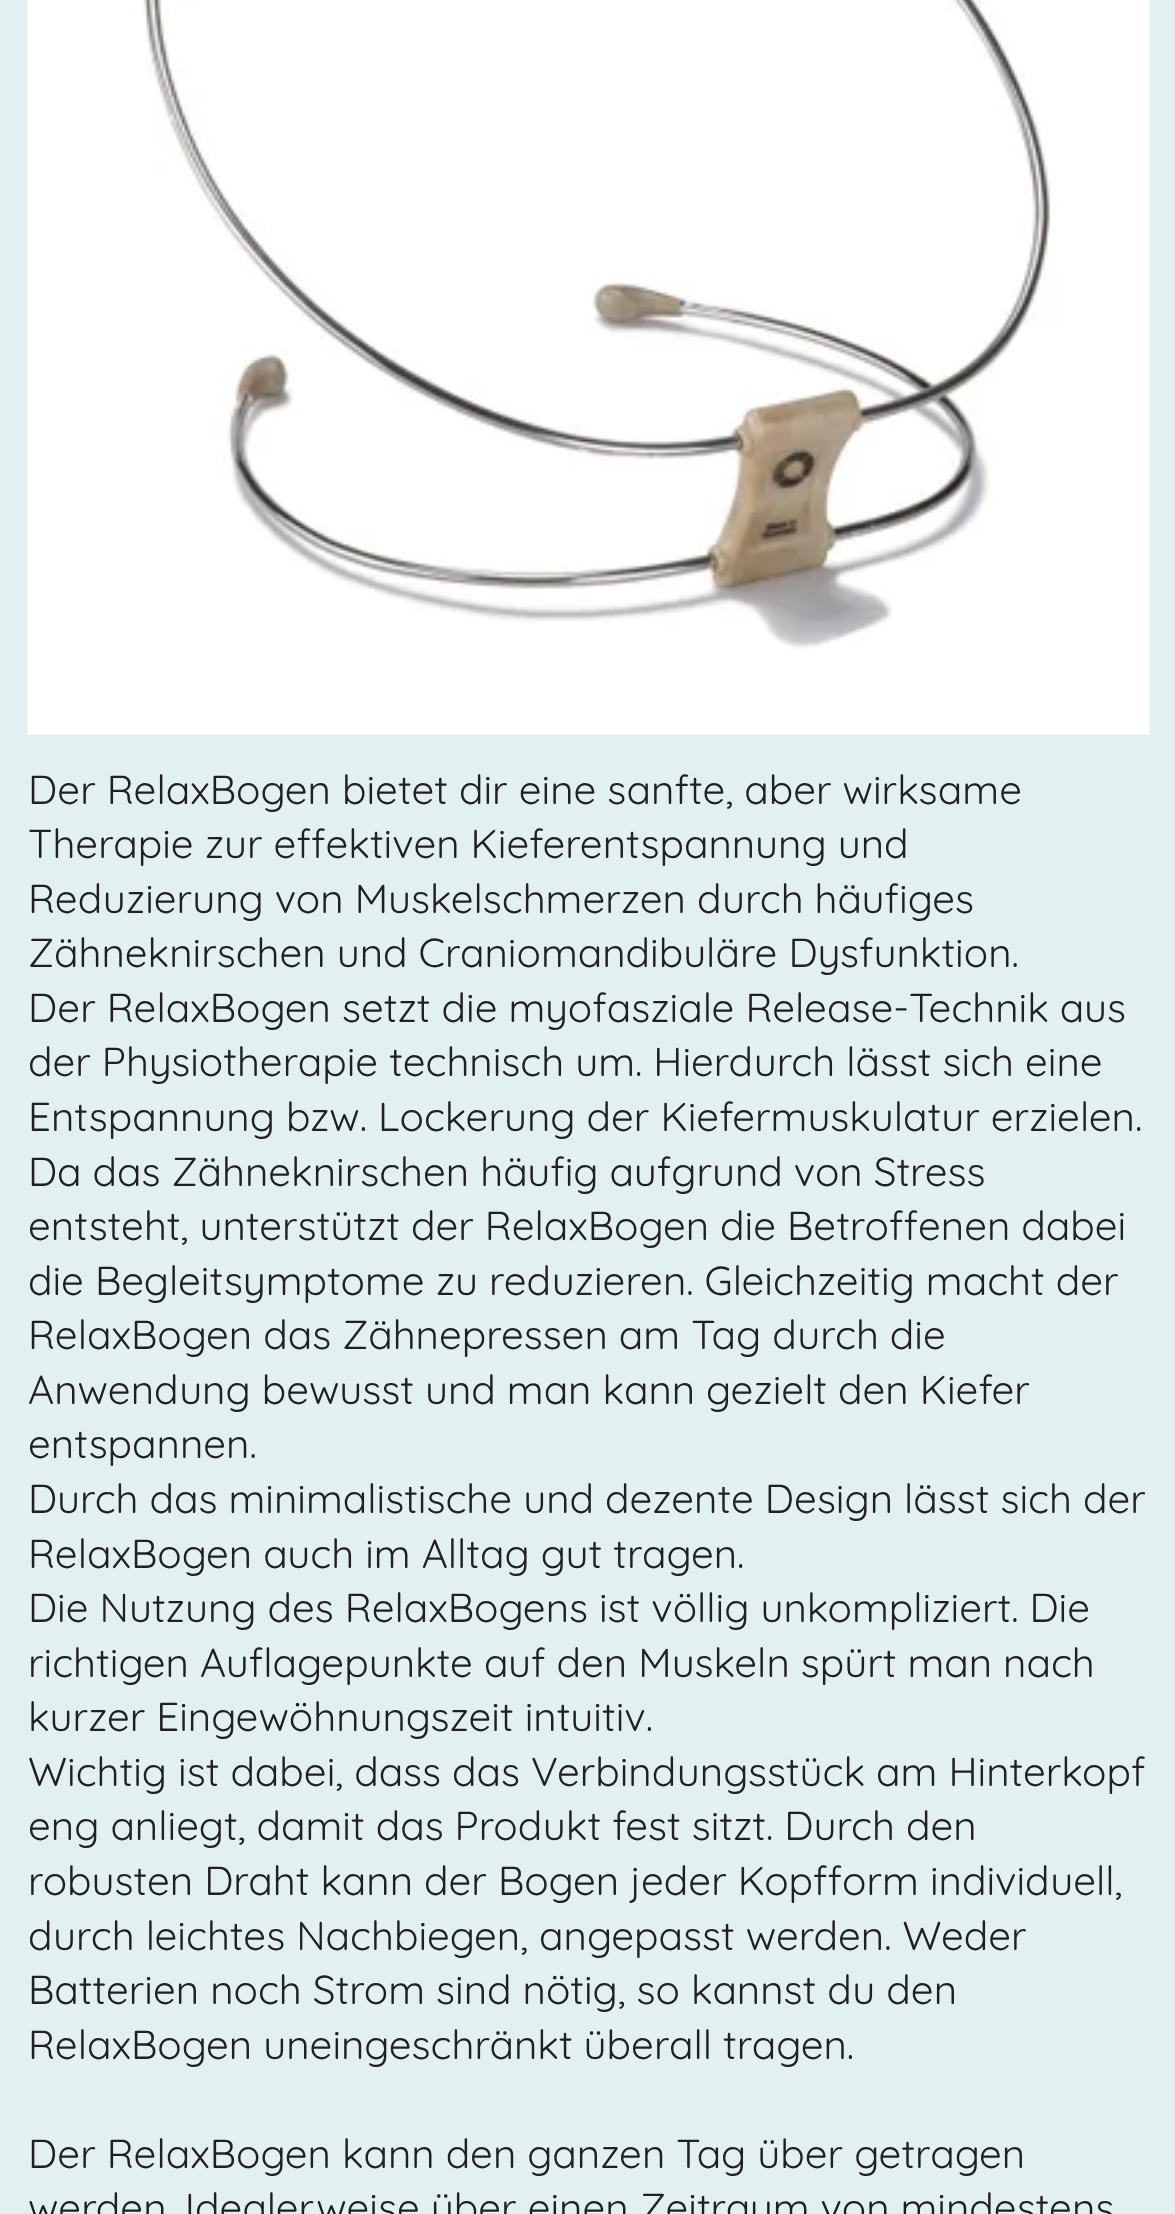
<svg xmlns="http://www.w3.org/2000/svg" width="1175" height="2214">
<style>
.a{font:40.4px Quicksand;fill:#202020}
</style>
<rect width="100%" height="100%" fill="#e3f0f1"/>
<image href="1.png" x="27" y="0" width="1123" height="735"/>
<text class="a" x="28" y="804">Der RelaxBogen bietet dir eine sanfte, aber wirksame</text>
<text class="a" x="28" y="858">Therapie zur effektiven Kieferentspannung und</text>
<text class="a" x="28" y="913">Reduzierung von Muskelschmerzen durch häufiges</text>
<text class="a" x="28" y="967">Zähneknirschen und Craniomandibuläre Dysfunktion.</text>
<text class="a" x="28" y="1022">Der RelaxBogen setzt die myofasziale Release-Technik aus</text>
<text class="a" x="28" y="1076">der Physiotherapie technisch um. Hierdurch lässt sich eine</text>
<text class="a" x="28" y="1131">Entspannung bzw. Lockerung der Kiefermuskulatur erzielen.</text>
<text class="a" x="28" y="1186">Da das Zähneknirschen häufig aufgrund von Stress</text>
<text class="a" x="28" y="1240">entsteht, unterstützt der RelaxBogen die Betroffenen dabei</text>
<text class="a" x="28" y="1295">die Begleitsymptome zu reduzieren. Gleichzeitig macht der</text>
<text class="a" x="28" y="1349">RelaxBogen das Zähnepressen am Tag durch die</text>
<text class="a" x="28" y="1404">Anwendung bewusst und man kann gezielt den Kiefer</text>
<text class="a" x="28" y="1458">entspannen.</text>
<text class="a" x="28" y="1513">Durch das minimalistische und dezente Design lässt sich der</text>
<text class="a" x="28" y="1568">RelaxBogen auch im Alltag gut tragen.</text>
<text class="a" x="28" y="1622">Die Nutzung des RelaxBogens ist völlig unkompliziert. Die</text>
<text class="a" x="28" y="1677">richtigen Auflagepunkte auf den Muskeln spürt man nach</text>
<text class="a" x="28" y="1731">kurzer Eingewöhnungszeit intuitiv.</text>
<text class="a" x="28" y="1786">Wichtig ist dabei, dass das Verbindungsstück am Hinterkopf</text>
<text class="a" x="28" y="1840">eng anliegt, damit das Produkt fest sitzt. Durch den</text>
<text class="a" x="28" y="1895">robusten Draht kann der Bogen jeder Kopfform individuell,</text>
<text class="a" x="28" y="1950">durch leichtes Nachbiegen, angepasst werden. Weder</text>
<text class="a" x="28" y="2004">Batterien noch Strom sind nötig, so kannst du den</text>
<text class="a" x="28" y="2059">RelaxBogen uneingeschränkt überall tragen.</text>
<text class="a" x="28" y="2168">Der RelaxBogen kann den ganzen Tag über getragen</text>
<text class="a" x="28" y="2222">werden. Idealerweise über einen Zeitraum von mindestens</text>
</svg>
